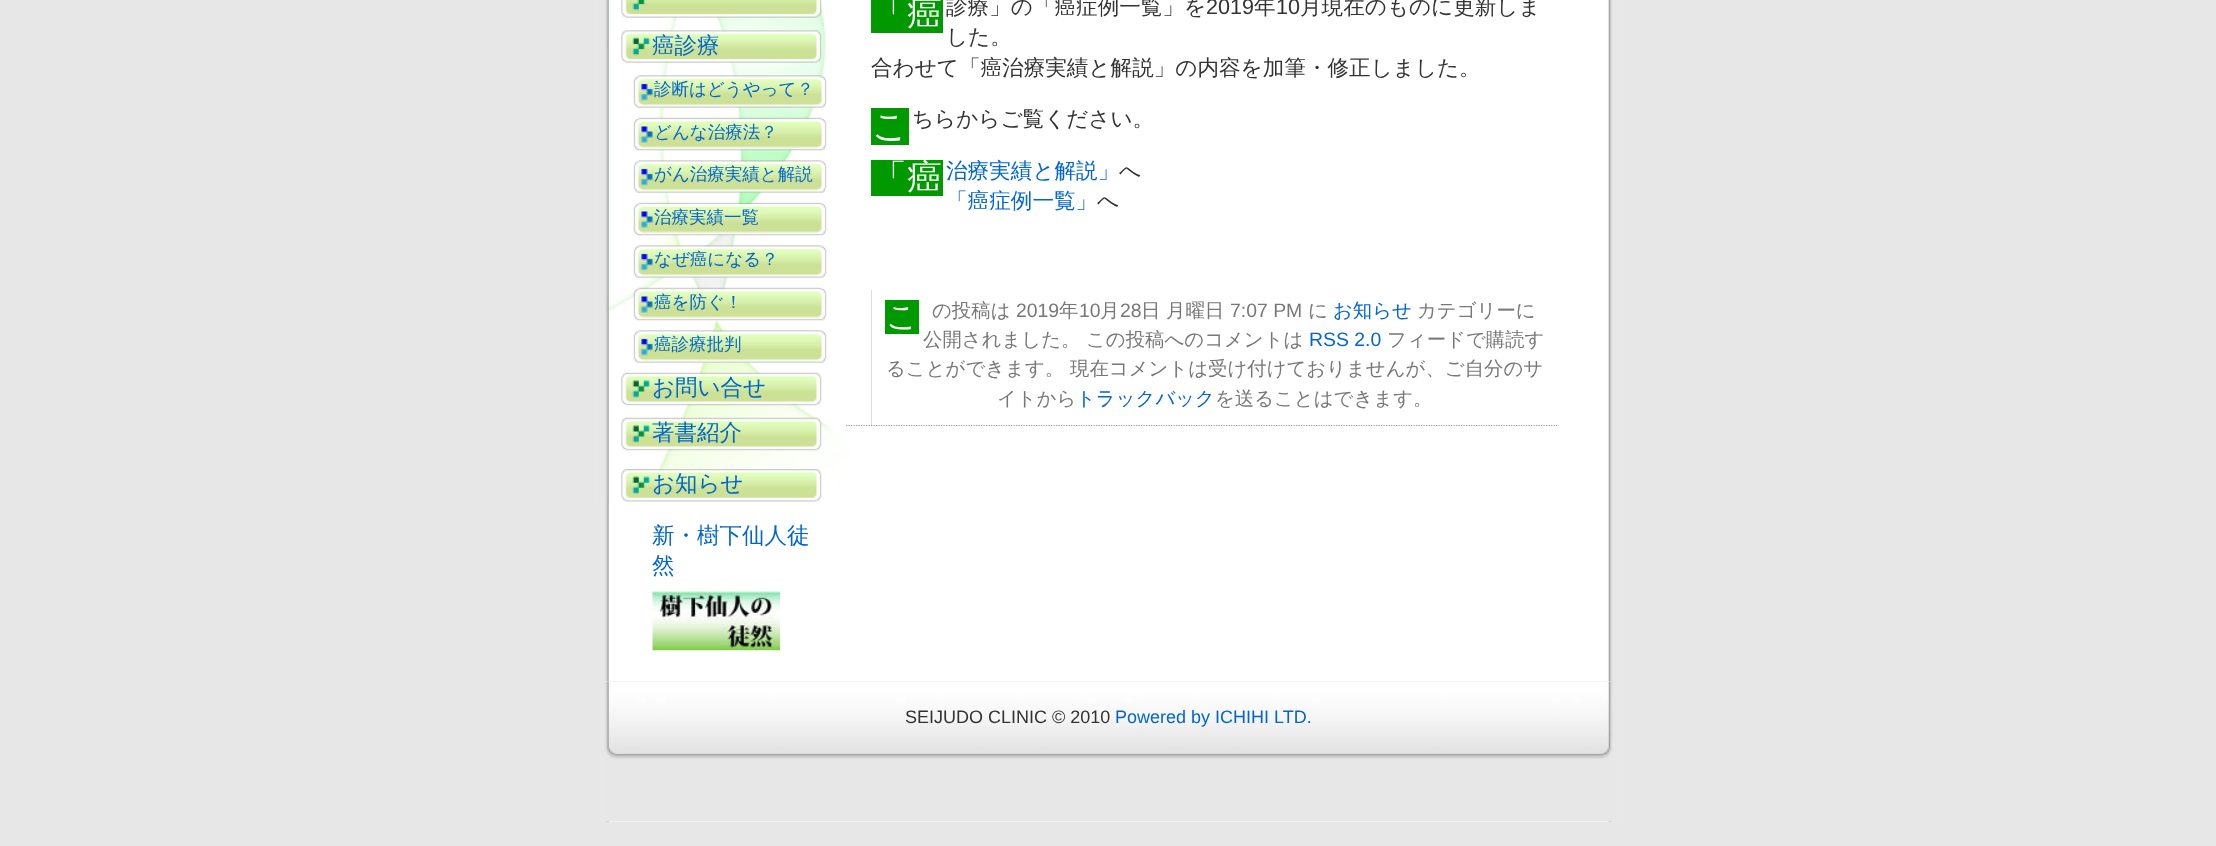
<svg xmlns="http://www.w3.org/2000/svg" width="2216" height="846">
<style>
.a{font:500 22.5px WenQuanYi Zen Hei;fill:#06c}
.b{font:500 17.5px WenQuanYi Zen Hei;fill:#06c}
.c{font:35px Noto Sans;fill:#fff}
.d{font:500 21.6px WenQuanYi Zen Hei;fill:#333}
.e{font:21.6px Liberation Sans;fill:#333}
.f{font:500 21.6px WenQuanYi Zen Hei;fill:#06c}
.g{font:31px Noto Sans;fill:#fff}
.h{font:500 19.4px WenQuanYi Zen Hei;fill:#777}
.i{font:19.4px Liberation Sans;fill:#777}
.j{font:500 19.4px WenQuanYi Zen Hei;fill:#06c}
.k{font:19.4px Liberation Sans;fill:#06c}
.l{font:18px Liberation Sans;fill:#333}
.m{font:18px Liberation Sans;fill:#06c}
</style>
<rect width="100%" height="100%" fill="#e7e7e7"/>
<image href="1.png" x="596" y="0" width="1025" height="822"/>
<image href="2.png" x="596" y="0" width="255" height="502"/>
<image href="3.png" x="621" y="0" width="201" height="18"/>
<image href="4.png" x="621" y="30" width="201" height="33"/>
<image href="5.png" x="633" y="75" width="194" height="33"/>
<image href="6.png" x="633" y="117" width="194" height="34"/>
<image href="7.png" x="633" y="160" width="194" height="33"/>
<image href="8.png" x="633" y="202" width="194" height="34"/>
<image href="9.png" x="633" y="245" width="194" height="33"/>
<image href="10.png" x="633" y="287" width="194" height="34"/>
<image href="11.png" x="633" y="330" width="194" height="33"/>
<image href="12.png" x="621" y="372" width="201" height="34"/>
<image href="13.png" x="621" y="417" width="201" height="34"/>
<image href="14.png" x="621" y="469" width="201" height="33"/>
<image href="15.png" x="652" y="591" width="128" height="60"/>
<path fill="none" stroke="#999" stroke-width="1.2" stroke-dasharray="1.25 1.25" d="M846 425.5h713"/>
<path fill="#090" d="M871 0h72v33H871z"/>
<path fill="#090" d="M871 108h38v37H871z"/>
<path fill="#090" d="M871 160h72v36H871z"/>
<path fill="#ddd" d="M871 290h1v135H871z"/>
<path fill="#090" d="M885 300h34v34H885z"/>
<path fill="#e7e7e7" d="M605 681h1008v140H605z"/>
<image href="16.png" x="605" y="681" width="1008" height="79"/>
<text class="a" x="652" y="53">癌診療</text>
<text class="b" x="654" y="95">診断はどうやって？</text>
<text class="b" x="654" y="138">どんな治療法？</text>
<text class="b" x="654" y="180">がん治療実績と解説</text>
<text class="b" x="654" y="223">治療実績一覧</text>
<text class="b" x="654" y="265">なぜ癌になる？</text>
<text class="b" x="654" y="308">癌を防ぐ！</text>
<text class="b" x="654" y="350">癌診療批判</text>
<text class="a" x="652" y="395">お問い合せ</text>
<text class="a" x="652" y="440">著書紹介</text>
<text class="a" x="652" y="491">お知らせ</text>
<text class="a" x="652" y="543">新・樹下仙人徒</text>
<text class="a" x="652" y="573">然</text>
<text class="c" x="872" y="25">「癌</text>
<text class="d" x="946" y="14">診療」の「癌症例一覧」を</text>
<text class="e" x="1206" y="14">2019</text>
<text class="d" x="1254" y="14">年</text>
<text class="e" x="1276" y="14">10</text>
<text class="d" x="1300" y="14">月現在のものに更新しま</text>
<text class="d" x="946" y="44">した。</text>
<text class="d" x="871" y="75">合わせて「癌治療実績と解説」の内容を加筆・修正しました。</text>
<text class="c" x="872" y="138">こ</text>
<text class="d" x="912" y="126">ちらからご覧ください。</text>
<text class="c" x="872" y="189">「癌</text>
<text class="f" x="946" y="178">治療実績と解説」</text>
<text class="d" x="1119" y="178">へ</text>
<text class="f" x="946" y="208">「癌症例一覧」</text>
<text class="d" x="1097" y="208">へ</text>
<text class="g" x="886" y="327">こ</text>
<text class="h" x="932" y="317">の投稿は</text>
<text class="i" x="1016" y="317">2019</text>
<text class="h" x="1059" y="317">年</text>
<text class="i" x="1079" y="317">10</text>
<text class="h" x="1100" y="317">月</text>
<text class="i" x="1120" y="317">28</text>
<text class="h" x="1141" y="317">日</text>
<text class="h" x="1166" y="317">月曜日</text>
<text class="i" x="1230" y="317">7:07 PM</text>
<text class="h" x="1308" y="317">に</text>
<text class="j" x="1333" y="317">お知らせ</text>
<text class="h" x="1417" y="317">カテゴリーに</text>
<text class="h" x="923" y="346">公開されました。</text>
<text class="h" x="1086" y="346">この投稿へのコメントは</text>
<text class="k" x="1309" y="346">RSS 2.0</text>
<text class="h" x="1387" y="346">フィードで購読す</text>
<text class="h" x="886" y="375">ることができます。</text>
<text class="h" x="1070" y="375">現在コメントは受け付けておりませんが、ご自分のサ</text>
<text class="h" x="997" y="405">イトから</text>
<text class="j" x="1076" y="405">トラックバック</text>
<text class="h" x="1215" y="405">を送ることはできます。</text>
<text class="l" x="905" y="723">SEIJUDO CLINIC © 2010</text>
<text class="m" x="1115" y="723">Powered by ICHIHI LTD.</text>
</svg>
